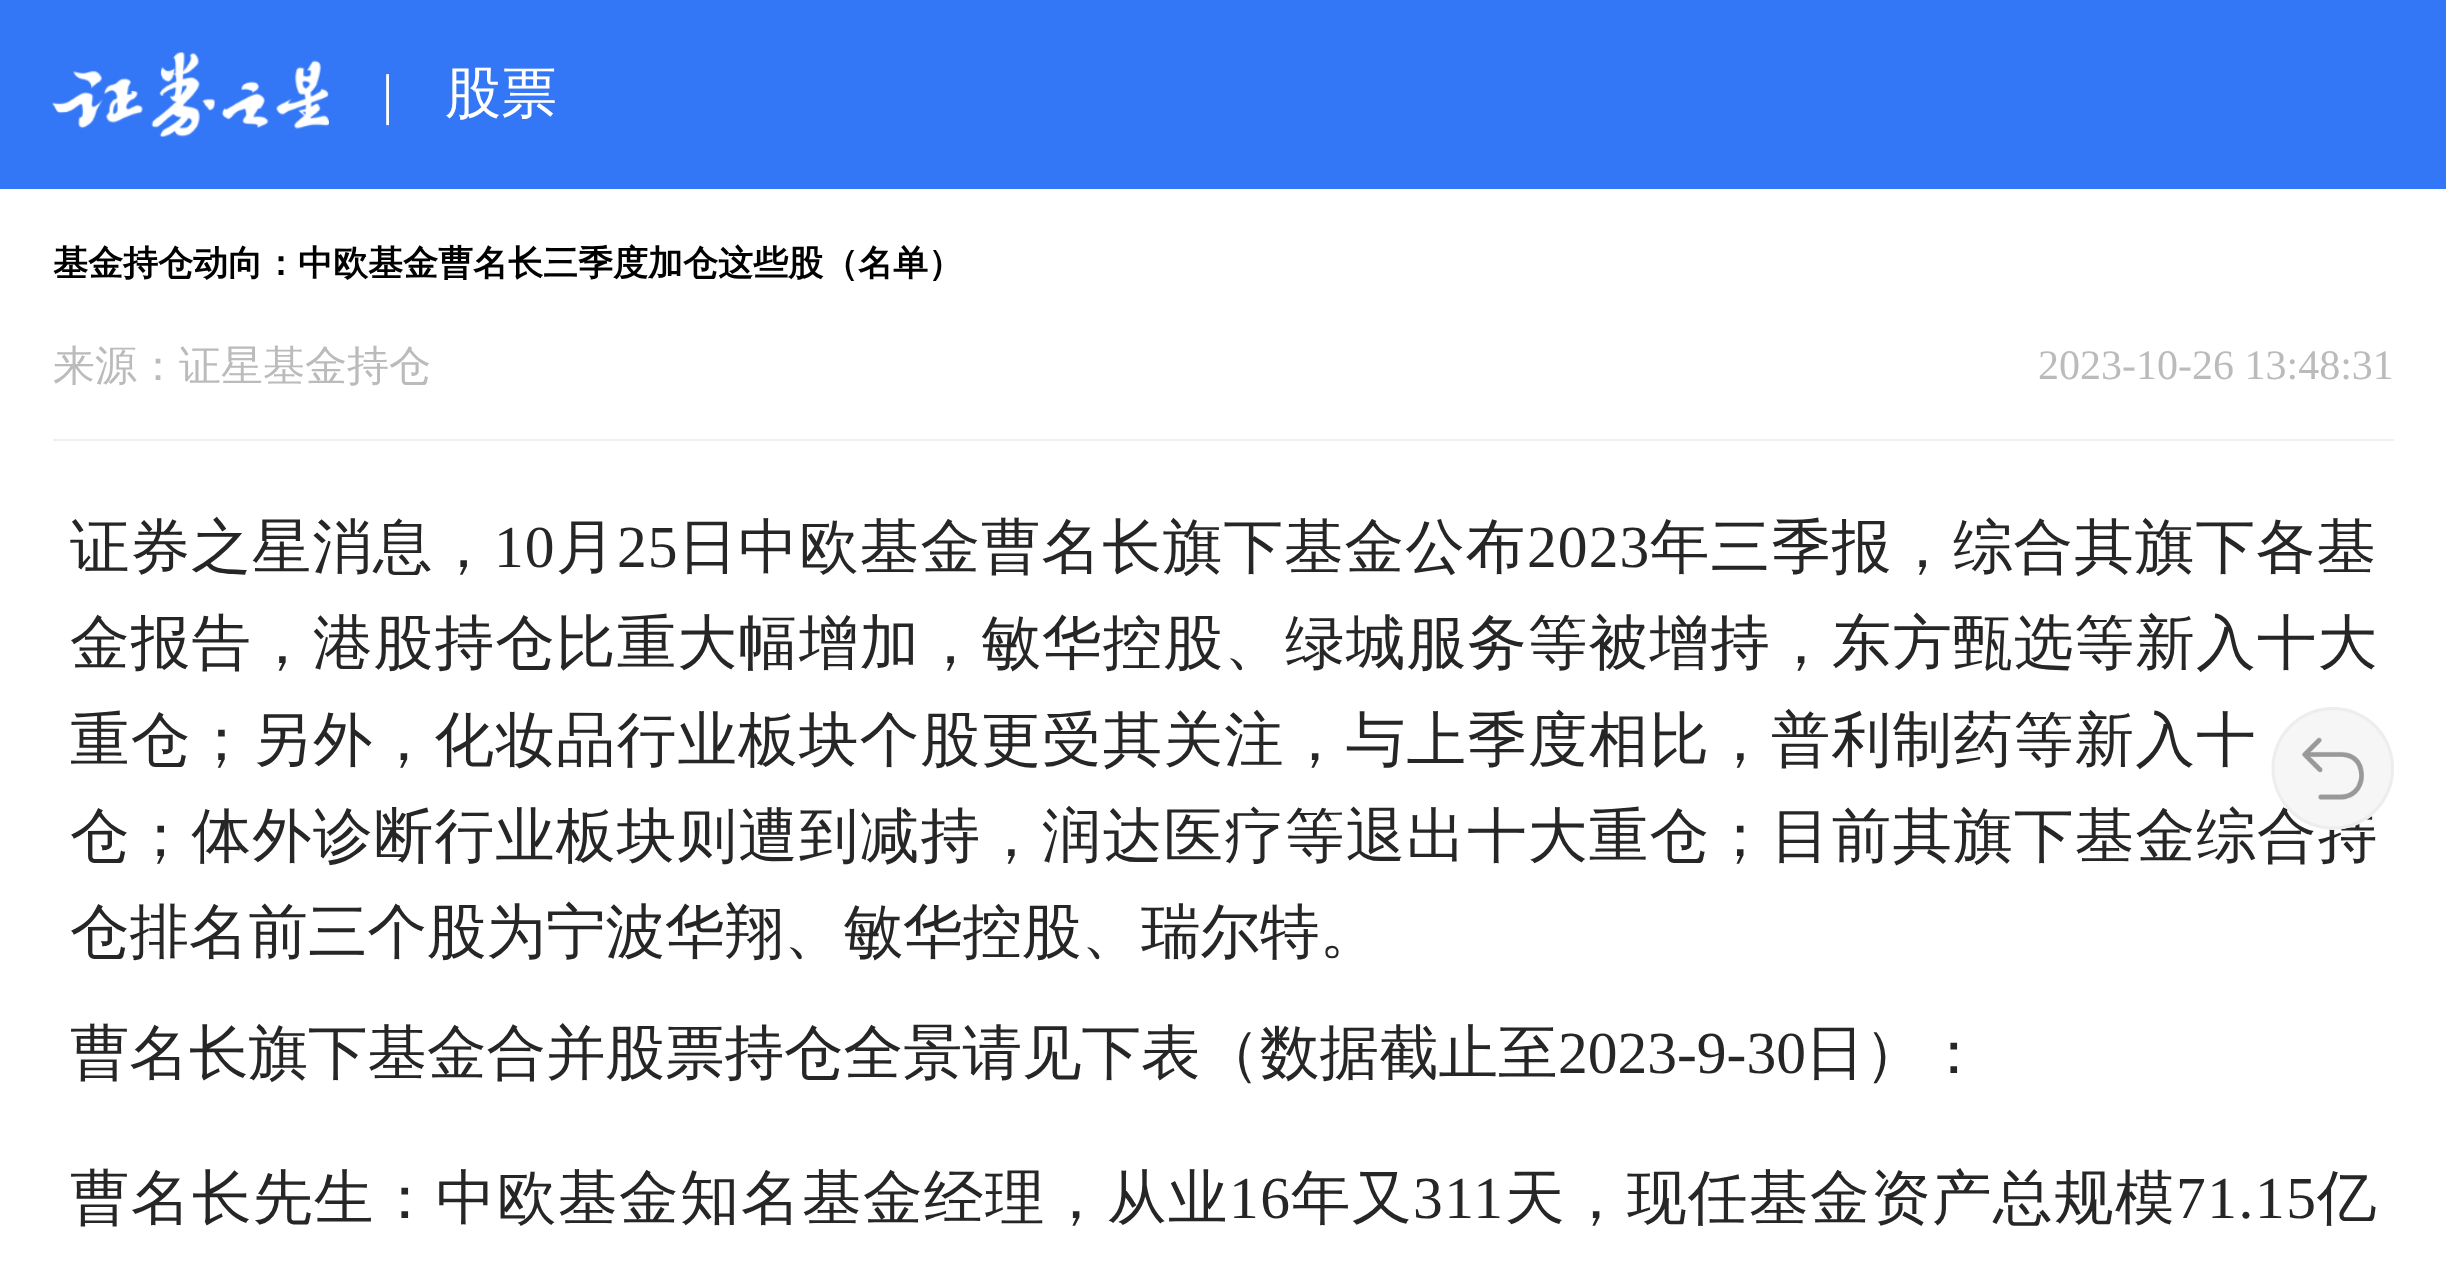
<svg xmlns="http://www.w3.org/2000/svg" width="2446" height="1267">
<style>
.a{font:56px Liberation Serif;fill:#fff}
.b{font:500 56px WenQuanYi Zen Hei;fill:#fff}
.c{font:bold 35px WenQuanYi Zen Hei;fill:#000}
.d{font:500 42px WenQuanYi Zen Hei;fill:#bbb}
.e{font:42px Liberation Serif;fill:#bbb}
.f{font:500 59.5px WenQuanYi Zen Hei;letter-spacing:1.1px;fill:#262626}
.g{font:59.5px Liberation Serif;letter-spacing:1.1px;fill:#262626}
.h{font:500 59.5px WenQuanYi Zen Hei;letter-spacing:1.25px;fill:#262626}
.i{font:500 59.5px WenQuanYi Zen Hei;fill:#262626}
.j{font:59.5px Liberation Serif;fill:#262626}
.k{font:500 59.5px WenQuanYi Zen Hei;letter-spacing:1.5px;fill:#262626}
.l{font:59.5px Liberation Serif;letter-spacing:1.5px;fill:#262626}
</style>
<rect width="100%" height="100%" fill="#fff"/>
<path fill="#3477f6" d="M0 0h2446v189H0z"/>
<image href="1.png" x="52" y="52" width="277" height="85"/>
<path fill="#f0f0f0" d="M53 439h2341v2H53z"/>
<text class="a" x="382" y="113">|</text>
<text class="b" x="445" y="112">股票</text>
<text class="c" x="53" y="275">基金持仓动向：中欧基金曹名长三季度加仓这些股（名单）</text>
<text class="d" x="53" y="380">来源：证星基金持仓</text>
<text class="e" x="2038" y="379">2023-10-26 13:48:31</text>
<text class="f" x="70" y="567">证券之星消息，</text>
<text class="g" x="494" y="567">10</text>
<text class="f" x="556" y="567">月</text>
<text class="g" x="617" y="567">25</text>
<text class="f" x="678" y="567">日中欧基金曹名长旗下基金公布</text>
<text class="g" x="1527" y="567">2023</text>
<text class="f" x="1650" y="567">年三季报，综合其旗下各基</text>
<text class="h" x="70" y="663">金报告，港股持仓比重大幅增加，敏华控股、绿城服务等被增持，东方甄选等新入十大</text>
<text class="h" x="70" y="760">重仓；另外，化妆品行业板块个股更受其关注，与上季度相比，普利制药等新入十</text>
<text class="h" x="70" y="856">仓；体外诊断行业板块则遭到减持，润达医疗等退出十大重仓；目前其旗下基金综合持</text>
<text class="i" x="70" y="952">仓排名前三个股为宁波华翔、敏华控股、瑞尔特。</text>
<text class="i" x="70" y="1073">曹名长旗下基金合并股票持仓全景请见下表（数据截止至</text>
<text class="j" x="1558" y="1073">2023-9-30</text>
<text class="i" x="1805" y="1073">日）：</text>
<text class="k" x="70" y="1218">曹名长先生：中欧基金知名基金经理，从业</text>
<text class="l" x="1229" y="1218">16</text>
<text class="k" x="1291" y="1218">年又</text>
<text class="l" x="1413" y="1218">311</text>
<text class="k" x="1505" y="1218">天，现任基金资产总规模</text>
<text class="l" x="2176" y="1218">71.15</text>
<text class="k" x="2317" y="1218">亿</text>
<rect fill="#f6f6f6" x="2272" y="707" width="122" height="123" rx="61"/>
<image href="2.png" x="2271" y="707" width="123" height="123"/>
</svg>
